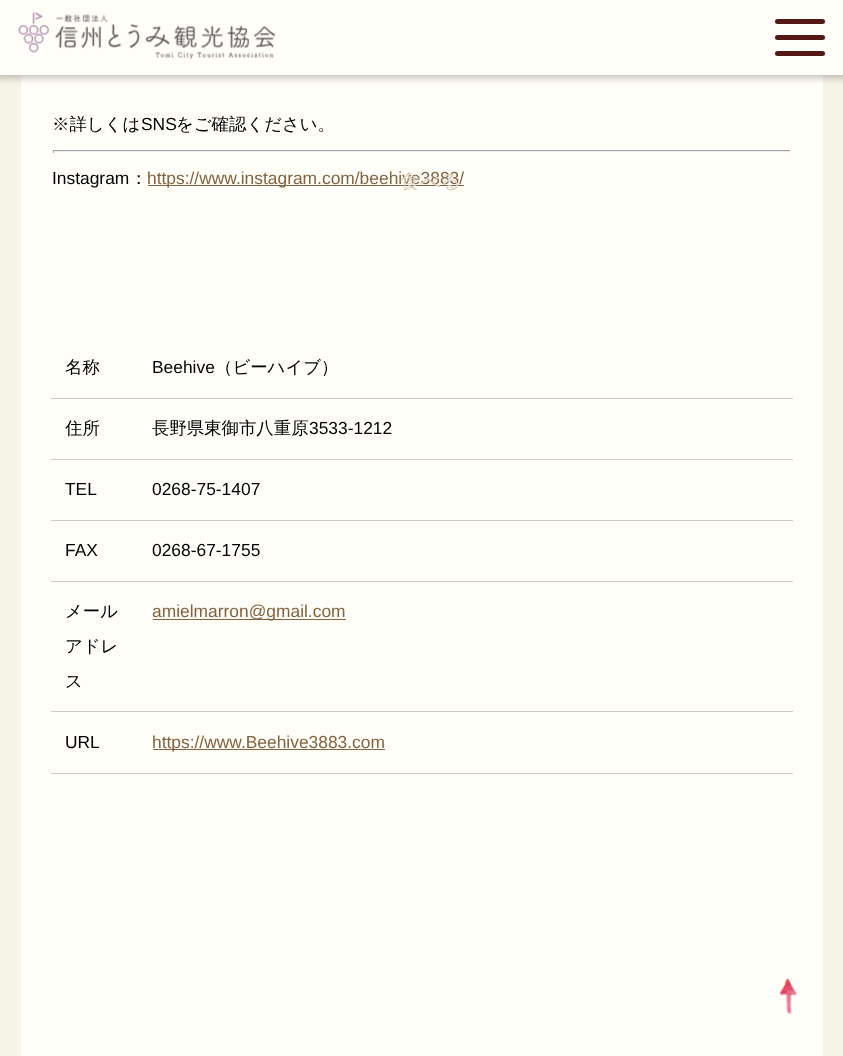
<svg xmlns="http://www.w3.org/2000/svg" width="843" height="1056">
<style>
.a{font:500 17.4px WenQuanYi Zen Hei;fill:#000}
.b{font:17.4px Liberation Sans;fill:#000}
.c{font:17.4px Liberation Sans;fill:#84623f}
.d{font:500 20px WenQuanYi Zen Hei;fill:#dbd0c1}
</style>
<rect width="100%" height="100%" fill="#f7f5e8"/>
<path fill="#fffef8" d="M21 75h802v981H21z"/>
<path fill="#9f9f9f" d="M53 150h738v1H53z"/>
<path fill="#eee" d="M790 150h1v3H790z"/>
<path fill="#eee" d="M53 151h738v1H53z"/>
<path fill="#9f9f9f" d="M53 150h1v3H53z"/>
<path fill="#84623f" d="M148 185h316v1H148z"/>
<path fill="#ccc" d="M51 398h742v1H51z"/>
<path fill="#ccc" d="M51 459h742v1H51z"/>
<path fill="#ccc" d="M51 520h742v1H51z"/>
<path fill="#ccc" d="M51 581h742v1H51z"/>
<path fill="#ccc" d="M51 711h742v1H51z"/>
<path fill="#84623f" d="M153 619h193v1H153z"/>
<path fill="#ccc" d="M51 773h742v1H51z"/>
<path fill="#84623f" d="M153 749h232v1H153z"/>
<path fill="#00000033" filter="blur(3px)" d="M-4 -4h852v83H-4z"/>
<path fill="#fffef8" d="M0 0h843v75H0z"/>
<image href="1.png" x="18" y="12" width="257" height="47"/>
<rect fill="#531916" x="775" y="19" width="50" height="5" rx="2.5"/>
<rect fill="#531916" x="775" y="35" width="50" height="5" rx="2.5"/>
<rect fill="#531916" x="775" y="51" width="50" height="5" rx="2.5"/>
<image href="2.png" x="779" y="978" width="18" height="36"/>
<text class="a" x="52" y="130">※詳しくは</text>
<text class="b" x="141" y="130">SNS</text>
<text class="a" x="176" y="130">をご確認ください。</text>
<text class="b" x="52" y="184">Instagram</text>
<text class="a" x="130" y="184">：</text>
<text class="c" x="147" y="184">https://www.instagram.com/beehive3883/</text>
<text class="a" x="65" y="373">名称</text>
<text class="b" x="152" y="373">Beehive</text>
<text class="a" x="215" y="373">（ビーハイブ）</text>
<text class="a" x="65" y="434">住所</text>
<text class="a" x="152" y="434">長野県東御市八重原</text>
<text class="b" x="309" y="434">3533‐1212</text>
<text class="b" x="65" y="495">TEL</text>
<text class="b" x="152" y="495">0268‐75‐1407</text>
<text class="b" x="65" y="556">FAX</text>
<text class="b" x="152" y="556">0268‐67‐1755</text>
<text class="a" x="65" y="617">メール</text>
<text class="a" x="65" y="652">アドレ</text>
<text class="a" x="65" y="687">ス</text>
<text class="c" x="152" y="617">amielmarron@gmail.com</text>
<text class="b" x="65" y="748">URL</text>
<text class="c" x="152" y="748">https://www.Beehive3883.com</text>
<text class="d" x="400" y="188">食べる</text>
</svg>
